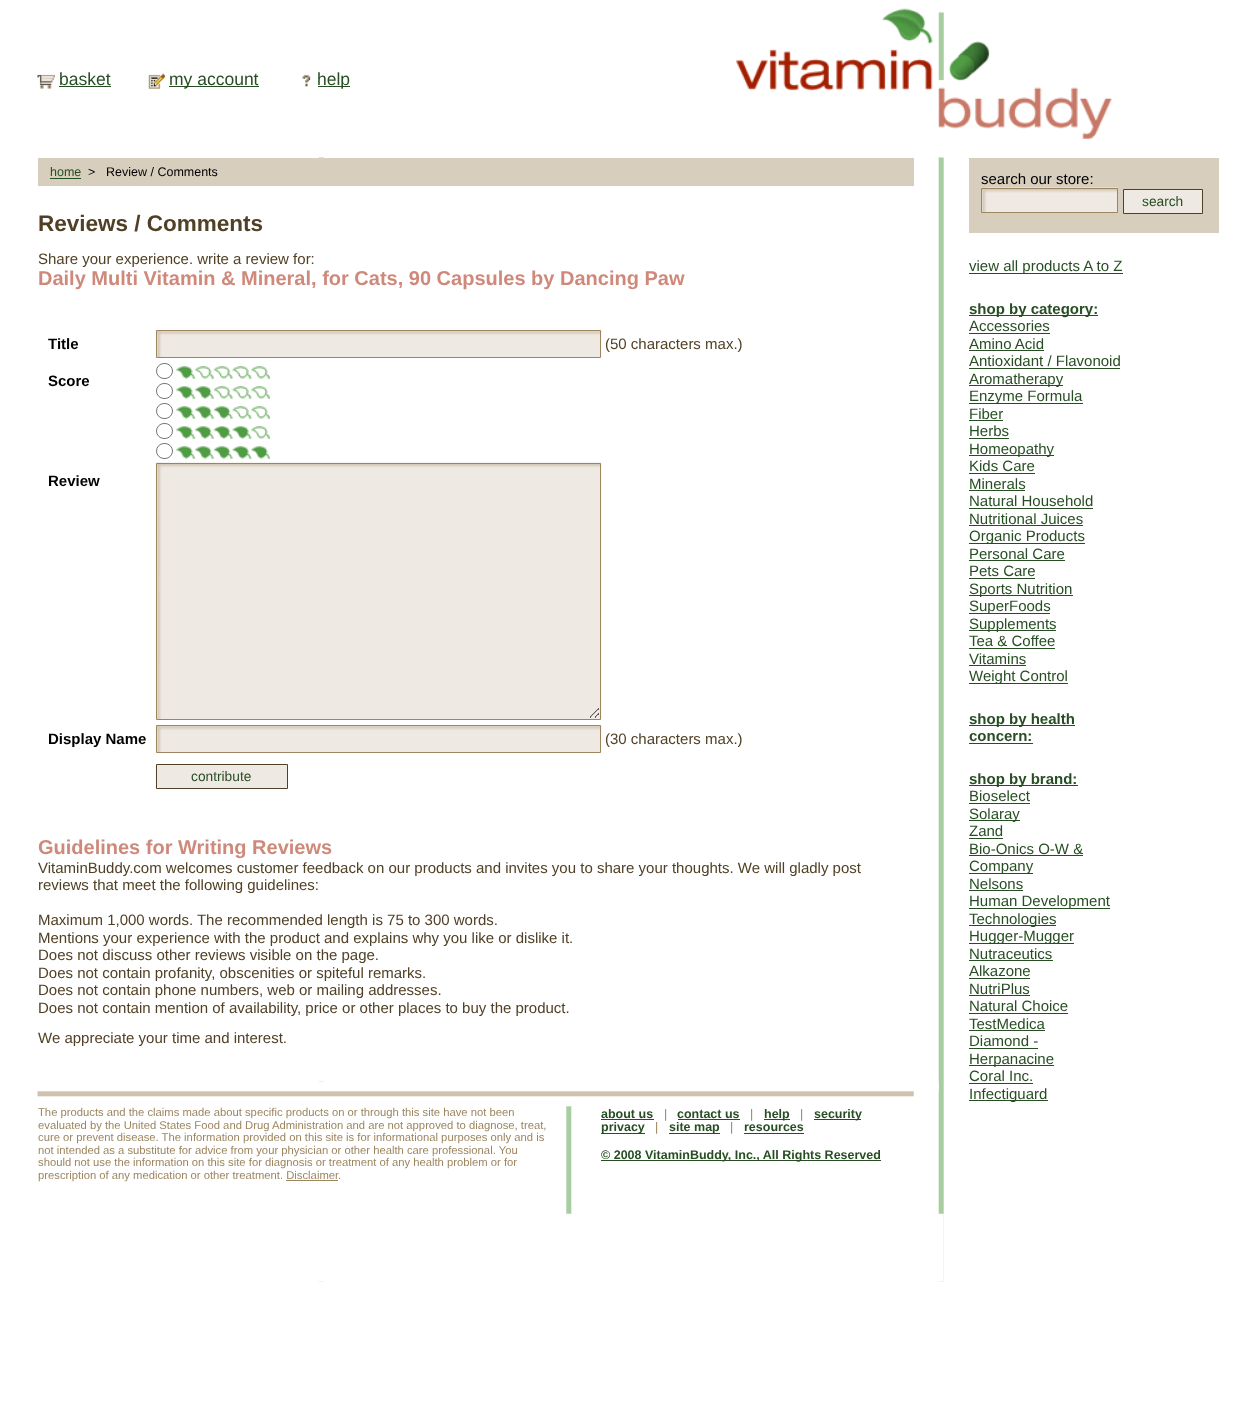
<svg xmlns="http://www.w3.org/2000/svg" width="1258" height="1425">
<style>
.a{font:17.5px Liberation Sans;fill:#274e23}
.b{font:12.5px Liberation Sans;fill:#274e23}
.c{font:12.5px Liberation Sans;fill:#000}
.d{font:bold 22.5px Liberation Sans;fill:#514025}
.e{font:15px Liberation Sans;fill:#514025}
.f{font:bold 20px Liberation Sans;fill:#cf897a}
.g{font:bold 15px Liberation Sans;fill:#000}
.h{font:13.75px Liberation Sans;fill:#274e23}
.i{font:11.25px Liberation Sans;fill:#9c855f}
.j{font:bold 12.5px Liberation Sans;fill:#274e23}
.k{font:12.5px Liberation Sans;fill:#9c855f}
.l{font:15px Liberation Sans;fill:#000}
.m{font:15px Liberation Sans;fill:#274e23}
.n{font:bold 15px Liberation Sans;fill:#274e23}
</style>
<rect width="100%" height="100%" fill="#fff"/>
<image href="1.png" x="37" y="74" width="18" height="15"/>
<path fill="#274e23" d="M59 86h52v1H59z"/>
<image href="2.png" x="148" y="73" width="17" height="16"/>
<path fill="#274e23" d="M169 86h90v1H169z"/>
<image href="3.png" x="302" y="74" width="9" height="13"/>
<path fill="#274e23" d="M318 86h32v1H318z"/>
<image href="4.png" x="736" y="8" width="376" height="131"/>
<image href="5.png" x="318" y="157" width="626" height="1125"/>
<path fill="#d8cebe" d="M38 158h876v28H38z"/>
<path fill="#fff" d="M318 186h6v895H318z"/>
<path fill="#274e23" d="M50 178h31v1H50z"/>
<image href="6.png" x="157" y="330" width="445" height="28"/>
<path fill="none" stroke="#9c855f" d="M156.5 330.5h444v27H156.5z"/>
<rect fill="none" stroke="#767676" x="156.5" y="363.5" width="16" height="15" rx="7.5"/>
<image href="7.png" x="176" y="366" width="94" height="13"/>
<rect fill="none" stroke="#767676" x="156.5" y="383.5" width="16" height="15" rx="7.5"/>
<image href="8.png" x="176" y="386" width="94" height="13"/>
<rect fill="none" stroke="#767676" x="156.5" y="403.5" width="16" height="15" rx="7.5"/>
<image href="9.png" x="176" y="406" width="94" height="13"/>
<rect fill="none" stroke="#767676" x="156.5" y="423.5" width="16" height="15" rx="7.5"/>
<image href="10.png" x="176" y="426" width="94" height="13"/>
<rect fill="none" stroke="#767676" x="156.5" y="443.5" width="16" height="15" rx="7.5"/>
<image href="11.png" x="176" y="446" width="94" height="13"/>
<image href="12.png" x="156" y="462" width="446" height="258"/>
<path fill="none" stroke="#9c855f" d="M156.5 463.5h444v256H156.5z"/>
<image href="6.png" x="157" y="725" width="445" height="28"/>
<path fill="none" stroke="#9c855f" d="M156.5 725.5h444v27H156.5z"/>
<path fill="#eee9e2" stroke="#514025" d="M156.5 764.5h131v24H156.5z"/>
<image href="13.png" x="37" y="1081" width="907" height="201"/>
<path fill="#9c855f" d="M286 1180h52v1H286z"/>
<path fill="#274e23" d="M601 1119h53v1H601z"/>
<path fill="#274e23" d="M678 1119h62v1H678z"/>
<path fill="#274e23" d="M764 1119h26v1H764z"/>
<path fill="#274e23" d="M814 1119h47v1H814z"/>
<path fill="#274e23" d="M601 1133h44v1H601z"/>
<path fill="#274e23" d="M669 1133h51v1H669z"/>
<path fill="#274e23" d="M744 1133h60v1H744z"/>
<path fill="#274e23" d="M601 1160h280v1H601z"/>
<path fill="#d8cebe" d="M969 158h250v75H969z"/>
<image href="14.png" x="981" y="187" width="137" height="25"/>
<path fill="none" stroke="#9c855f" d="M981.5 188.5h136v24H981.5z"/>
<path fill="#eee9e2" stroke="#514025" d="M1123.5 189.5h79v24H1123.5z"/>
<path fill="#274e23" d="M969 273h154v1H969z"/>
<path fill="#274e23" d="M969 315h129v1H969z"/>
<path fill="#274e23" d="M969 333h81v1H969z"/>
<path fill="#274e23" d="M969 350h75v1H969z"/>
<path fill="#274e23" d="M969 368h151v1H969z"/>
<path fill="#274e23" d="M969 385h94v1H969z"/>
<path fill="#274e23" d="M969 403h114v1H969z"/>
<path fill="#274e23" d="M969 420h34v1H969z"/>
<path fill="#274e23" d="M969 438h40v1H969z"/>
<path fill="#274e23" d="M969 455h85v1H969z"/>
<path fill="#274e23" d="M969 473h66v1H969z"/>
<path fill="#274e23" d="M969 490h56v1H969z"/>
<path fill="#274e23" d="M969 508h124v1H969z"/>
<path fill="#274e23" d="M969 525h114v1H969z"/>
<path fill="#274e23" d="M969 543h116v1H969z"/>
<path fill="#274e23" d="M969 560h96v1H969z"/>
<path fill="#274e23" d="M969 578h66v1H969z"/>
<path fill="#274e23" d="M969 595h104v1H969z"/>
<path fill="#274e23" d="M969 613h81v1H969z"/>
<path fill="#274e23" d="M969 630h87v1H969z"/>
<path fill="#274e23" d="M969 648h86v1H969z"/>
<path fill="#274e23" d="M969 665h57v1H969z"/>
<path fill="#274e23" d="M969 683h99v1H969z"/>
<path fill="#274e23" d="M969 725h106v1H969z"/>
<path fill="#274e23" d="M969 743h64v1H969z"/>
<path fill="#274e23" d="M969 785h109v1H969z"/>
<path fill="#274e23" d="M969 803h61v1H969z"/>
<path fill="#274e23" d="M969 820h51v1H969z"/>
<path fill="#274e23" d="M969 838h34v1H969z"/>
<path fill="#274e23" d="M969 855h114v1H969z"/>
<path fill="#274e23" d="M969 873h64v1H969z"/>
<path fill="#274e23" d="M969 890h54v1H969z"/>
<path fill="#274e23" d="M969 908h141v1H969z"/>
<path fill="#274e23" d="M969 925h87v1H969z"/>
<path fill="#274e23" d="M969 943h105v1H969z"/>
<path fill="#274e23" d="M969 960h84v1H969z"/>
<path fill="#274e23" d="M969 978h61v1H969z"/>
<path fill="#274e23" d="M969 995h61v1H969z"/>
<path fill="#274e23" d="M969 1013h99v1H969z"/>
<path fill="#274e23" d="M969 1030h76v1H969z"/>
<path fill="#274e23" d="M969 1048h69v1H969z"/>
<path fill="#274e23" d="M969 1065h85v1H969z"/>
<path fill="#274e23" d="M969 1083h64v1H969z"/>
<path fill="#274e23" d="M969 1100h79v1H969z"/>
<text class="a" x="59" y="85">basket</text>
<text class="a" x="169" y="85">my account</text>
<text class="a" x="317" y="85">help</text>
<text class="b" x="50" y="176">home</text>
<text class="c" x="88" y="176">&gt;</text>
<text class="c" x="106" y="176">Review / Comments</text>
<text class="d" x="38" y="231">Reviews / Comments</text>
<text class="e" x="38" y="264">Share your experience. write a review for:</text>
<text class="f" x="38" y="285">Daily Multi Vitamin &amp; Mineral, for Cats, 90 Capsules by Dancing Paw</text>
<text class="g" x="48" y="349">Title</text>
<text class="e" x="605" y="349">(50 characters max.)</text>
<text class="g" x="48" y="386">Score</text>
<text class="g" x="48" y="486">Review</text>
<text class="g" x="48" y="744">Display Name</text>
<text class="e" x="605" y="744">(30 characters max.)</text>
<text class="h" x="191" y="781">contribute</text>
<text class="f" x="38" y="854">Guidelines for Writing Reviews</text>
<text class="e" x="38" y="873">VitaminBuddy.com welcomes customer feedback on our products and invites you to share your thoughts. We will gladly post</text>
<text class="e" x="38" y="890">reviews that meet the following guidelines:</text>
<text class="e" x="38" y="925">Maximum 1,000 words. The recommended length is 75 to 300 words.</text>
<text class="e" x="38" y="943">Mentions your experience with the product and explains why you like or dislike it.</text>
<text class="e" x="38" y="960">Does not discuss other reviews visible on the page.</text>
<text class="e" x="38" y="978">Does not contain profanity, obscenities or spiteful remarks.</text>
<text class="e" x="38" y="995">Does not contain phone numbers, web or mailing addresses.</text>
<text class="e" x="38" y="1013">Does not contain mention of availability, price or other places to buy the product.</text>
<text class="e" x="38" y="1043">We appreciate your time and interest.</text>
<text class="i" x="38" y="1116">The products and the claims made about specific products on or through this site have not been</text>
<text class="i" x="38" y="1129">evaluated by the United States Food and Drug Administration and are not approved to diagnose, treat,</text>
<text class="i" x="38" y="1141">cure or prevent disease. The information provided on this site is for informational purposes only and is</text>
<text class="i" x="38" y="1154">not intended as a substitute for advice from your physician or other health care professional. You</text>
<text class="i" x="38" y="1166">should not use the information on this site for diagnosis or treatment of any health problem or for</text>
<text class="i" x="38" y="1179">prescription of any medication or other treatment. Disclaimer</text>
<text class="i" x="338" y="1179">.</text>
<text class="j" x="601" y="1118">about us</text>
<text class="k" x="664" y="1118">|</text>
<text class="j" x="677" y="1118">contact us</text>
<text class="k" x="750" y="1118">|</text>
<text class="j" x="764" y="1118">help</text>
<text class="k" x="800" y="1118">|</text>
<text class="j" x="814" y="1118">security</text>
<text class="j" x="601" y="1131">privacy</text>
<text class="k" x="655" y="1131">|</text>
<text class="j" x="669" y="1131">site map</text>
<text class="k" x="730" y="1131">|</text>
<text class="j" x="744" y="1131">resources</text>
<text class="j" x="601" y="1159">© 2008 VitaminBuddy, Inc., All Rights Reserved</text>
<text class="l" x="981" y="184">search our store:</text>
<text class="h" x="1142" y="206">search</text>
<text class="m" x="969" y="271">view all products A to Z</text>
<text class="n" x="969" y="314">shop by category:</text>
<text class="m" x="969" y="331">Accessories</text>
<text class="m" x="969" y="349">Amino Acid</text>
<text class="m" x="969" y="366">Antioxidant / Flavonoid</text>
<text class="m" x="969" y="384">Aromatherapy</text>
<text class="m" x="969" y="401">Enzyme Formula</text>
<text class="m" x="969" y="419">Fiber</text>
<text class="m" x="969" y="436">Herbs</text>
<text class="m" x="969" y="454">Homeopathy</text>
<text class="m" x="969" y="471">Kids Care</text>
<text class="m" x="969" y="489">Minerals</text>
<text class="m" x="969" y="506">Natural Household</text>
<text class="m" x="969" y="524">Nutritional Juices</text>
<text class="m" x="969" y="541">Organic Products</text>
<text class="m" x="969" y="559">Personal Care</text>
<text class="m" x="969" y="576">Pets Care</text>
<text class="m" x="969" y="594">Sports Nutrition</text>
<text class="m" x="969" y="611">SuperFoods</text>
<text class="m" x="969" y="629">Supplements</text>
<text class="m" x="969" y="646">Tea &amp; Coffee</text>
<text class="m" x="969" y="664">Vitamins</text>
<text class="m" x="969" y="681">Weight Control</text>
<text class="n" x="969" y="724">shop by health</text>
<text class="n" x="969" y="741">concern:</text>
<text class="n" x="969" y="784">shop by brand:</text>
<text class="m" x="969" y="801">Bioselect</text>
<text class="m" x="969" y="819">Solaray</text>
<text class="m" x="969" y="836">Zand</text>
<text class="m" x="969" y="854">Bio-Onics O-W &amp;</text>
<text class="m" x="969" y="871">Company</text>
<text class="m" x="969" y="889">Nelsons</text>
<text class="m" x="969" y="906">Human Development</text>
<text class="m" x="969" y="924">Technologies</text>
<text class="m" x="969" y="941">Hugger-Mugger</text>
<text class="m" x="969" y="959">Nutraceutics</text>
<text class="m" x="969" y="976">Alkazone</text>
<text class="m" x="969" y="994">NutriPlus</text>
<text class="m" x="969" y="1011">Natural Choice</text>
<text class="m" x="969" y="1029">TestMedica</text>
<text class="m" x="969" y="1046">Diamond -</text>
<text class="m" x="969" y="1064">Herpanacine</text>
<text class="m" x="969" y="1081">Coral Inc.</text>
<text class="m" x="969" y="1099">Infectiguard</text>
</svg>
